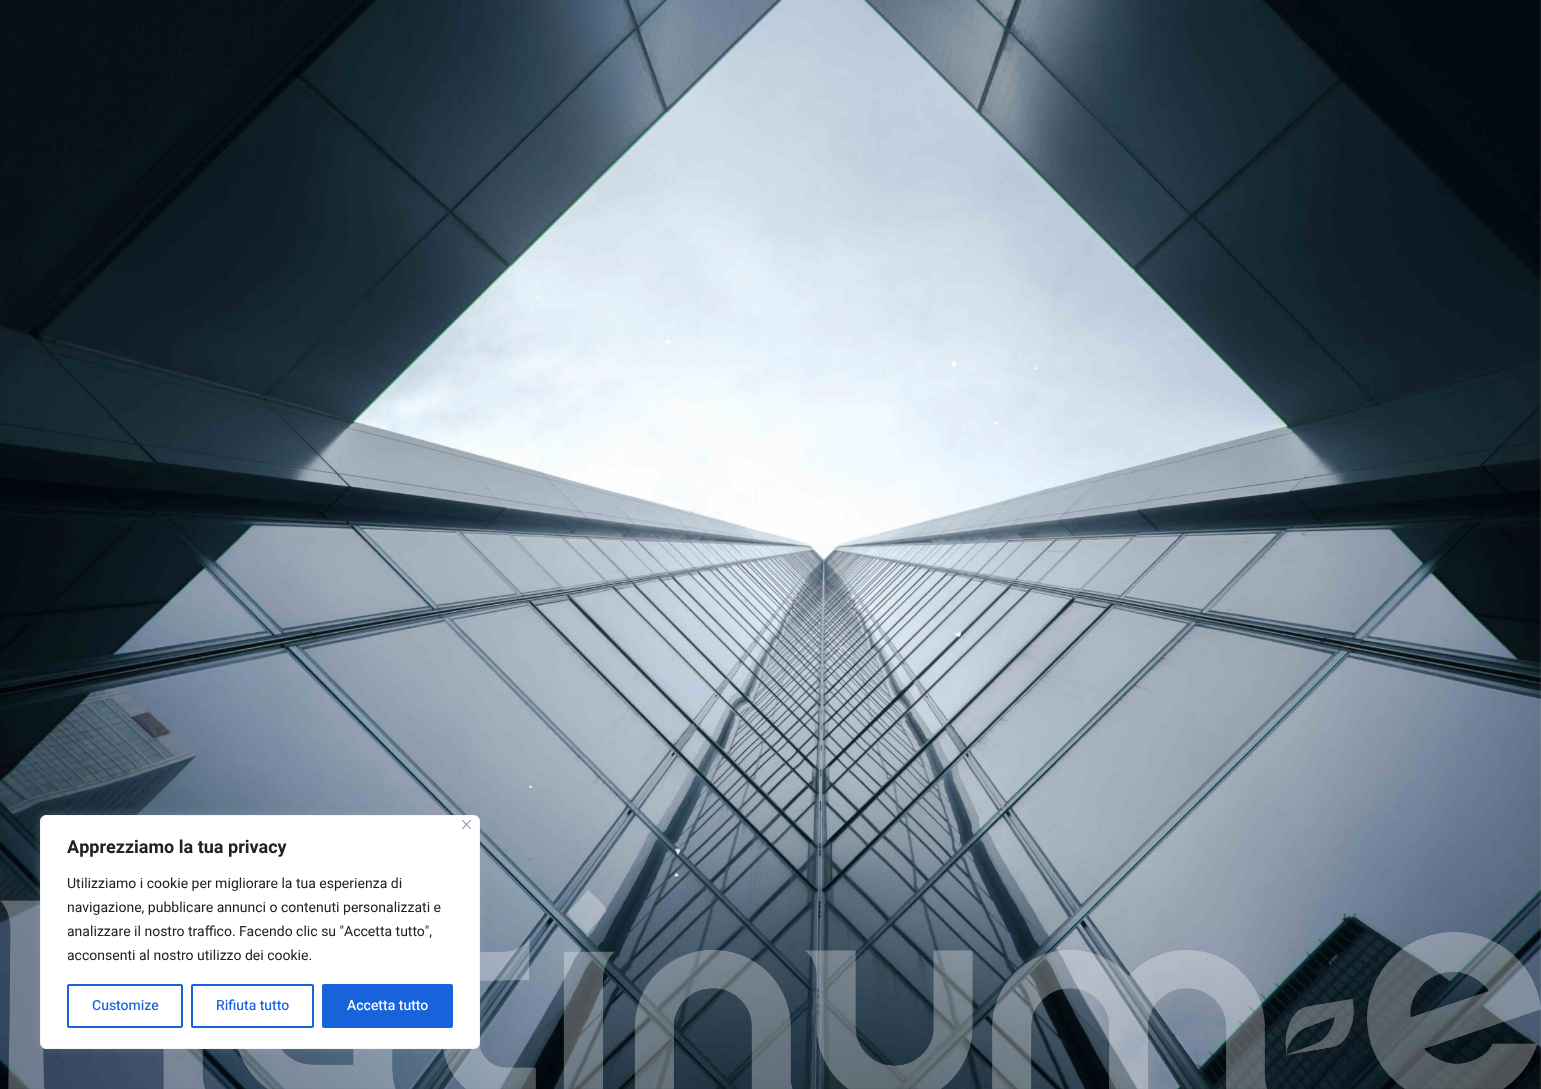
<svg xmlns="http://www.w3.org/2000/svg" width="1541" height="1089">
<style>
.a{font:bold 18px Heebo;fill:#212121}
.b{font:14px Heebo;fill:#212121}
.c{font:500 14px Heebo;fill:#1863dc}
.d{font:500 14px Heebo;fill:#fff}
</style>
<rect width="100%" height="100%" fill="#fff"/>
<image href="1.png" x="0" y="0" width="1541" height="1089"/>
<image href="2.png" x="529" y="296" width="508" height="581"/>
<image href="3.png" x="0" y="890" width="1541" height="199"/>
<rect fill="#acabab4d" filter="blur(5px)" x="40" y="814" width="440" height="234" rx="6"/>
<rect fill="#fff" stroke="#f4f4f4" x="40.5" y="815.5" width="439" height="233" rx="5.5"/>
<image href="4.png" x="462" y="820" width="9" height="9"/>
<rect fill="none" stroke="#1863dc" stroke-width="2" x="68" y="985" width="114" height="42" rx="1"/>
<rect fill="none" stroke="#1863dc" stroke-width="2" x="192" y="985" width="121" height="42" rx="1"/>
<rect fill="#1863dc" stroke="#1863dc" stroke-width="2" x="323" y="985" width="129" height="42" rx="1"/>
<text class="a" x="67" y="853">Apprezziamo la tua privacy</text>
<text class="b" x="67" y="888">Utilizziamo i cookie per migliorare la tua esperienza di</text>
<text class="b" x="67" y="912">navigazione, pubblicare annunci o contenuti personalizzati e</text>
<text class="b" x="67" y="936">analizzare il nostro traffico. Facendo clic su "Accetta tutto",</text>
<text class="b" x="67" y="960">acconsenti al nostro utilizzo dei cookie.</text>
<text class="c" x="92" y="1010">Customize</text>
<text class="c" x="216" y="1010">Rifiuta tutto</text>
<text class="d" x="347" y="1010">Accetta tutto</text>
</svg>
